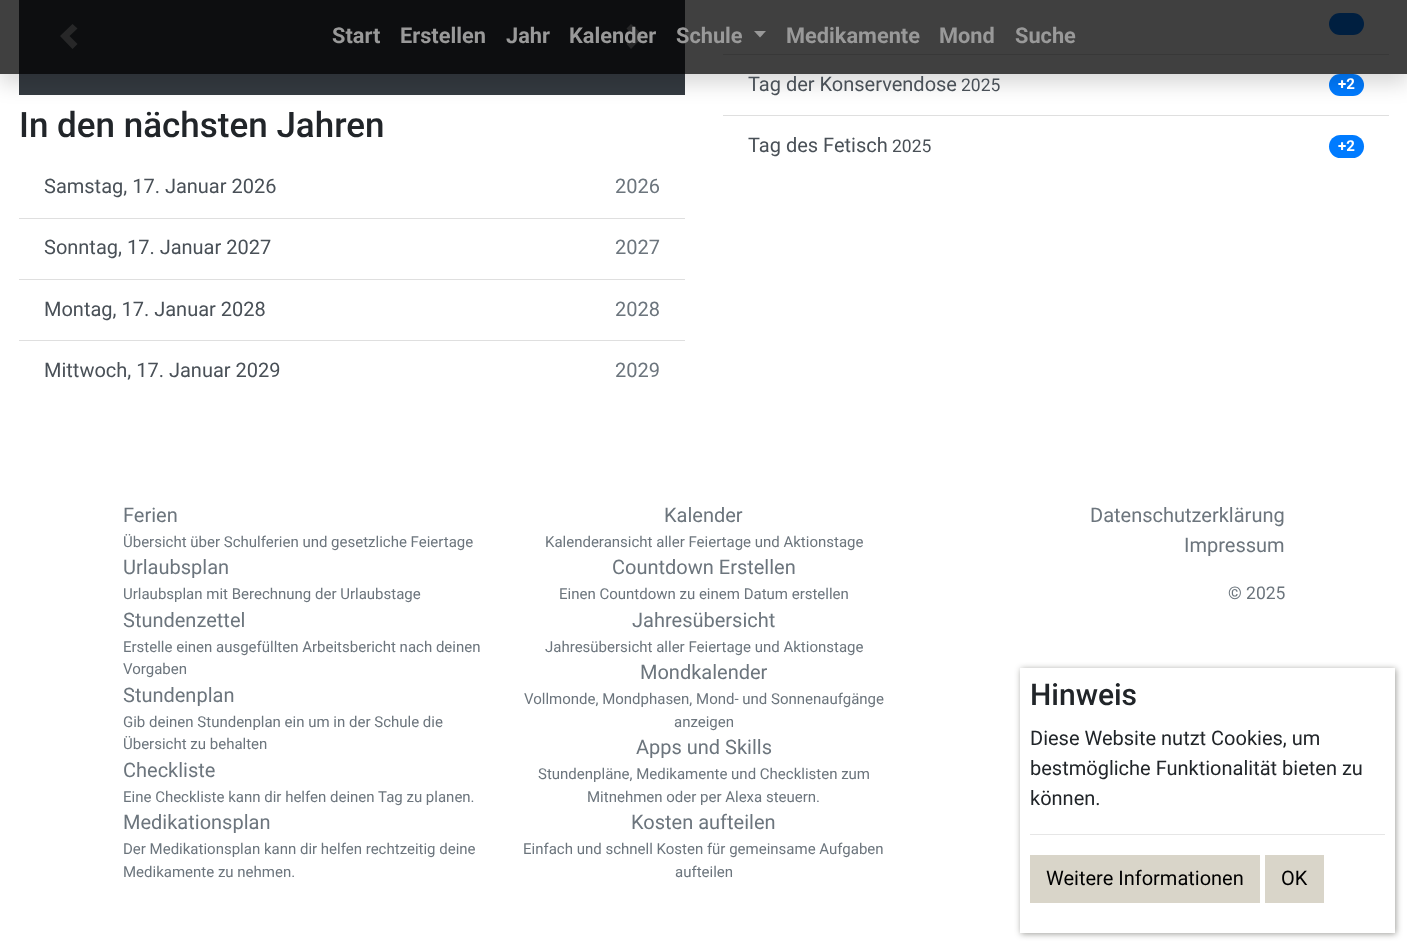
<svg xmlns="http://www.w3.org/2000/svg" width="1407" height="944">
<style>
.a{font:bold 21.75px Roboto;fill:#999}
.b{font:500 35px Roboto;fill:#212529}
.c{font:20px Roboto;fill:#495057}
.d{font:20px Roboto;fill:#6c757d}
.e{font:17.5px Roboto;fill:#495057}
.f{font:bold 15px Roboto;fill:#fff}
.g{font:15px Roboto;fill:#6c757d}
.h{font:17.5px Roboto;fill:#6c757d}
.i{font:500 30px Roboto;fill:#212529}
.j{font:20px Roboto;fill:#212529}
.k{font:20px Roboto;fill:#000}
</style>
<defs>
<clipPath id="clip1"><path d="M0 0h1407v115h-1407zm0 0h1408v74h-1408z" clip-rule="evenodd"/></clipPath>
</defs>
<rect width="100%" height="100%" fill="#fff"/>
<path fill="#343a40" d="M19 0h666v95H19z"/>
<path fill="#9a9da0" d="M72.5 24l-12.5 12l12.5 13l5-5l-8-8l8-7.5z"/>
<path fill="#9a9da0" d="M631 24l-4.5 4.5l7.5 7.5l-7.5 8l4.5 5l12.5-13z"/>
<path fill="#dfdfdf" d="M723 54h666v1H723z"/>
<rect fill="#007bff" x="1329" y="13" width="35" height="22" rx="11"/>
<rect fill="#007bff" x="1329" y="74" width="35" height="22" rx="11"/>
<g clip-path="url(#clip1)">
<path fill="#00000026" filter="blur(10px)" d="M0 10h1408v74H0z"/>
</g>
<path fill="#000000bf" d="M0 0h1407v74H0z"/>
<path fill="#999" d="M754 31h12l-6 6.5z"/>
<path fill="#dfdfdf" d="M19 218h666v1H19z"/>
<path fill="#dfdfdf" d="M19 279h666v1H19z"/>
<path fill="#dfdfdf" d="M19 340h666v1H19z"/>
<path fill="#dfdfdf" d="M723 115h666v1H723z"/>
<rect fill="#007bff" x="1329" y="135" width="35" height="23" rx="11.5"/>
<path fill="#09090066" filter="blur(3px)" d="M1021 669h375v265H1021z"/>
<path fill="#fff" d="M1020 668h375v265H1020z"/>
<path fill="#e6e6e6" d="M1030 834h355v1H1030z"/>
<path fill="#d9d5c9" d="M1030 855h230v48H1030z"/>
<path fill="#d9d5c9" d="M1265 855h59v48H1265z"/>
<text class="a" x="332" y="43">Start</text>
<text class="a" x="400" y="43">Erstellen</text>
<text class="a" x="506" y="43">Jahr</text>
<text class="a" x="569" y="43">Kalender</text>
<text class="a" x="676" y="43">Schule</text>
<text class="a" x="786" y="43">Medikamente</text>
<text class="a" x="939" y="43">Mond</text>
<text class="a" x="1015" y="43">Suche</text>
<text class="b" x="19" y="137">In den nächsten Jahren</text>
<text class="c" x="44" y="193">Samstag, 17. Januar 2026</text>
<text class="d" x="615" y="193">2026</text>
<text class="c" x="44" y="254">Sonntag, 17. Januar 2027</text>
<text class="d" x="615" y="254">2027</text>
<text class="c" x="44" y="316">Montag, 17. Januar 2028</text>
<text class="d" x="615" y="316">2028</text>
<text class="c" x="44" y="377">Mittwoch, 17. Januar 2029</text>
<text class="d" x="615" y="377">2029</text>
<text class="c" x="748" y="91">Tag der Konservendose</text>
<text class="e" x="961" y="91">2025</text>
<text class="f" x="1338" y="89">+2</text>
<text class="c" x="748" y="152">Tag des Fetisch</text>
<text class="e" x="892" y="152">2025</text>
<text class="f" x="1338" y="151">+2</text>
<text class="d" x="123" y="522">Ferien</text>
<text class="g" x="123" y="547">Übersicht über Schulferien und gesetzliche Feiertage</text>
<text class="d" x="123" y="574">Urlaubsplan</text>
<text class="g" x="123" y="599">Urlaubsplan mit Berechnung der Urlaubstage</text>
<text class="d" x="123" y="627">Stundenzettel</text>
<text class="g" x="123" y="652">Erstelle einen ausgefüllten Arbeitsbericht nach deinen</text>
<text class="g" x="123" y="674">Vorgaben</text>
<text class="d" x="123" y="702">Stundenplan</text>
<text class="g" x="123" y="727">Gib deinen Stundenplan ein um in der Schule die</text>
<text class="g" x="123" y="749">Übersicht zu behalten</text>
<text class="d" x="123" y="777">Checkliste</text>
<text class="g" x="123" y="802">Eine Checkliste kann dir helfen deinen Tag zu planen.</text>
<text class="d" x="123" y="829">Medikationsplan</text>
<text class="g" x="123" y="854">Der Medikationsplan kann dir helfen rechtzeitig deine</text>
<text class="g" x="123" y="877">Medikamente zu nehmen.</text>
<text class="d" x="664" y="522">Kalender</text>
<text class="g" x="545" y="547">Kalenderansicht aller Feiertage und Aktionstage</text>
<text class="d" x="612" y="574">Countdown Erstellen</text>
<text class="g" x="559" y="599">Einen Countdown zu einem Datum erstellen</text>
<text class="d" x="632" y="627">Jahresübersicht</text>
<text class="g" x="545" y="652">Jahresübersicht aller Feiertage und Aktionstage</text>
<text class="d" x="640" y="679">Mondkalender</text>
<text class="g" x="524" y="704">Vollmonde, Mondphasen, Mond- und Sonnenaufgänge</text>
<text class="g" x="674" y="727">anzeigen</text>
<text class="d" x="636" y="754">Apps und Skills</text>
<text class="g" x="538" y="779">Stundenpläne, Medikamente und Checklisten zum</text>
<text class="g" x="587" y="802">Mitnehmen oder per Alexa steuern.</text>
<text class="d" x="631" y="829">Kosten aufteilen</text>
<text class="g" x="523" y="854">Einfach und schnell Kosten für gemeinsame Aufgaben</text>
<text class="g" x="675" y="877">aufteilen</text>
<text class="d" x="1090" y="522">Datenschutzerklärung</text>
<text class="d" x="1184" y="552">Impressum</text>
<text class="h" x="1228" y="599">© 2025</text>
<text class="i" x="1030" y="705">Hinweis</text>
<text class="j" x="1030" y="745">Diese Website nutzt Cookies, um</text>
<text class="j" x="1030" y="775">bestmögliche Funktionalität bieten zu</text>
<text class="j" x="1030" y="805">können.</text>
<text class="k" x="1046" y="885">Weitere Informationen</text>
<text class="k" x="1281" y="885">OK</text>
</svg>
